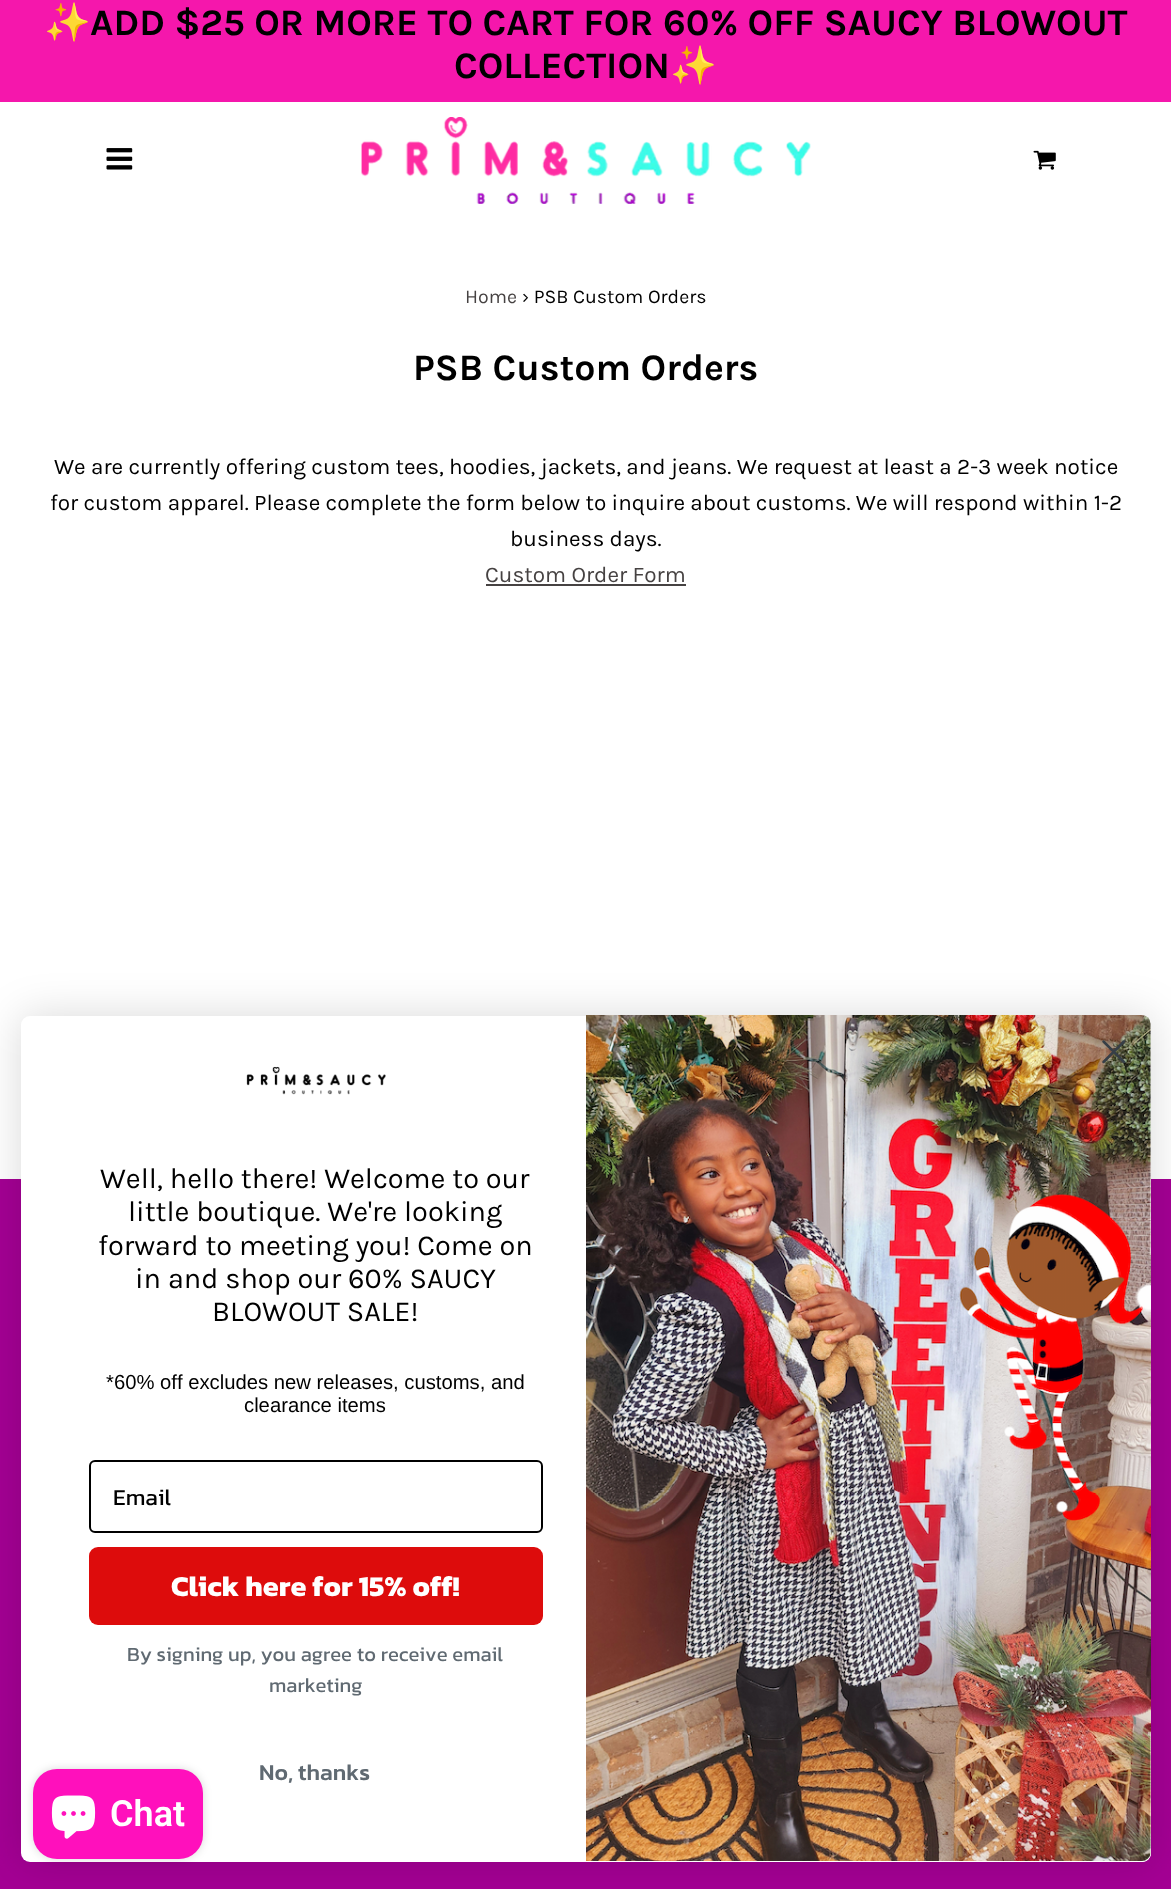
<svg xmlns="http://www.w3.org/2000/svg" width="1171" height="1889">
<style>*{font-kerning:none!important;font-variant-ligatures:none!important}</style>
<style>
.a{font:bold 37.5px Noto Color Emoji;fill:#000}
.b{font:bold 37.5px Karla;fill:#000}
.c{font:19.5px Karla;fill:#464242}
.d{font:19.5px Karla;fill:#000}
.e{font:22.5px Karla;fill:#000}
.f{font:22.5px Karla;fill:#464242}
.g{font:28.9px Karla;fill:#000}
.h{font:20.25px Liberation Sans;fill:#000}
.i{font:23px Kanit;fill:#000}
.j{font:bold 28.9px Kanit;fill:#fff}
.k{font:20.25px Kanit;fill:#606a72}
.l{font:500 23px Kanit;fill:#606a72}
.m{font:600 36px Roboto;fill:#fff}
</style>
<rect width="100%" height="100%" fill="#fff"/>
<path fill="#f517ac" d="M0 0h1171v102H0z"/>
<image href="1.png" x="106" y="148" width="27" height="22"/>
<image href="2.png" x="361" y="117" width="450" height="87"/>
<image href="3.png" x="1033" y="150" width="23" height="20"/>
<path fill="#464242" d="M486 584h200v2H486z"/>
<path fill="#a40094" d="M0 1179h1171v710H0z"/>
<rect fill="#00000026" filter="blur(21.5px)" x="21" y="1016" width="1130" height="846" rx="9"/>
<rect fill="#fff" x="21" y="1016" width="1130" height="846" rx="9"/>
<path fill="#fff" d="M587 1016h555c5 0 9 4 9 9v828c0 5-4 9-9 9h-555z"/>
<image href="5.png" x="586" y="1015" width="565" height="846"/>
<path fill="none" stroke="#373f47" stroke-width="2.5" stroke-linecap="round" stroke-linejoin="round" d="M1103.5 1041.5l20.5 20.5m-20.5 0l20.5-20.5z"/>
<image href="4.png" x="246" y="1066" width="140" height="29"/>
<rect fill="none" stroke="#000" stroke-width="2" x="90" y="1461" width="452" height="71" rx="5"/>
<rect fill="#dd0c0c" x="89" y="1547" width="454" height="78" rx="9"/>
<rect fill="#00000026" filter="blur(4px)" x="33" y="1769" width="170" height="90" rx="24"/>
<rect fill="#ff10bc" x="33" y="1769" width="170" height="90" rx="24"/>
<image href="6.png" x="51" y="1795" width="45" height="44"/>
<text class="a" x="44" y="35">✨</text>
<text class="b" x="90" y="35">ADD $25 OR MORE TO CART FOR 60% OFF SAUCY BLOWOUT</text>
<text class="b" x="454" y="78">COLLECTION</text>
<text class="a" x="670" y="78">✨</text>
<text class="c" x="465" y="303">Home</text>
<text class="d" x="522" y="303">› PSB Custom Orders</text>
<text class="b" x="413" y="380">PSB Custom Orders</text>
<text class="e" x="54" y="474">We are currently offering custom tees, hoodies, jackets, and jeans. We request at least a 2-3 week notice</text>
<text class="e" x="50" y="510">for custom apparel. Please complete the form below to inquire about customs. We will respond within 1-2</text>
<text class="e" x="510" y="546">business days.</text>
<text class="f" x="485" y="582">Custom Order Form</text>
<text class="g" x="100" y="1188">Well, hello there! Welcome to our</text>
<text class="g" x="128" y="1221">little boutique. We're looking</text>
<text class="g" x="98" y="1255">forward to meeting you! Come on</text>
<text class="g" x="135" y="1288">in and shop our 60% SAUCY</text>
<text class="g" x="212" y="1321">BLOWOUT SALE!</text>
<text class="h" x="106" y="1389">*60% off excludes new releases, customs, and</text>
<text class="h" x="244" y="1412">clearance items</text>
<text class="i" x="113" y="1505">Email</text>
<text class="j" x="171" y="1596">Click here for 15% off!</text>
<text class="k" x="127" y="1661">By signing up, you agree</text>
<text class="k" x="357" y="1661">to receive email</text>
<text class="k" x="269" y="1692">marketing</text>
<text class="l" x="259" y="1780">No, thanks</text>
<text class="m" x="110" y="1826">Chat</text>
</svg>
